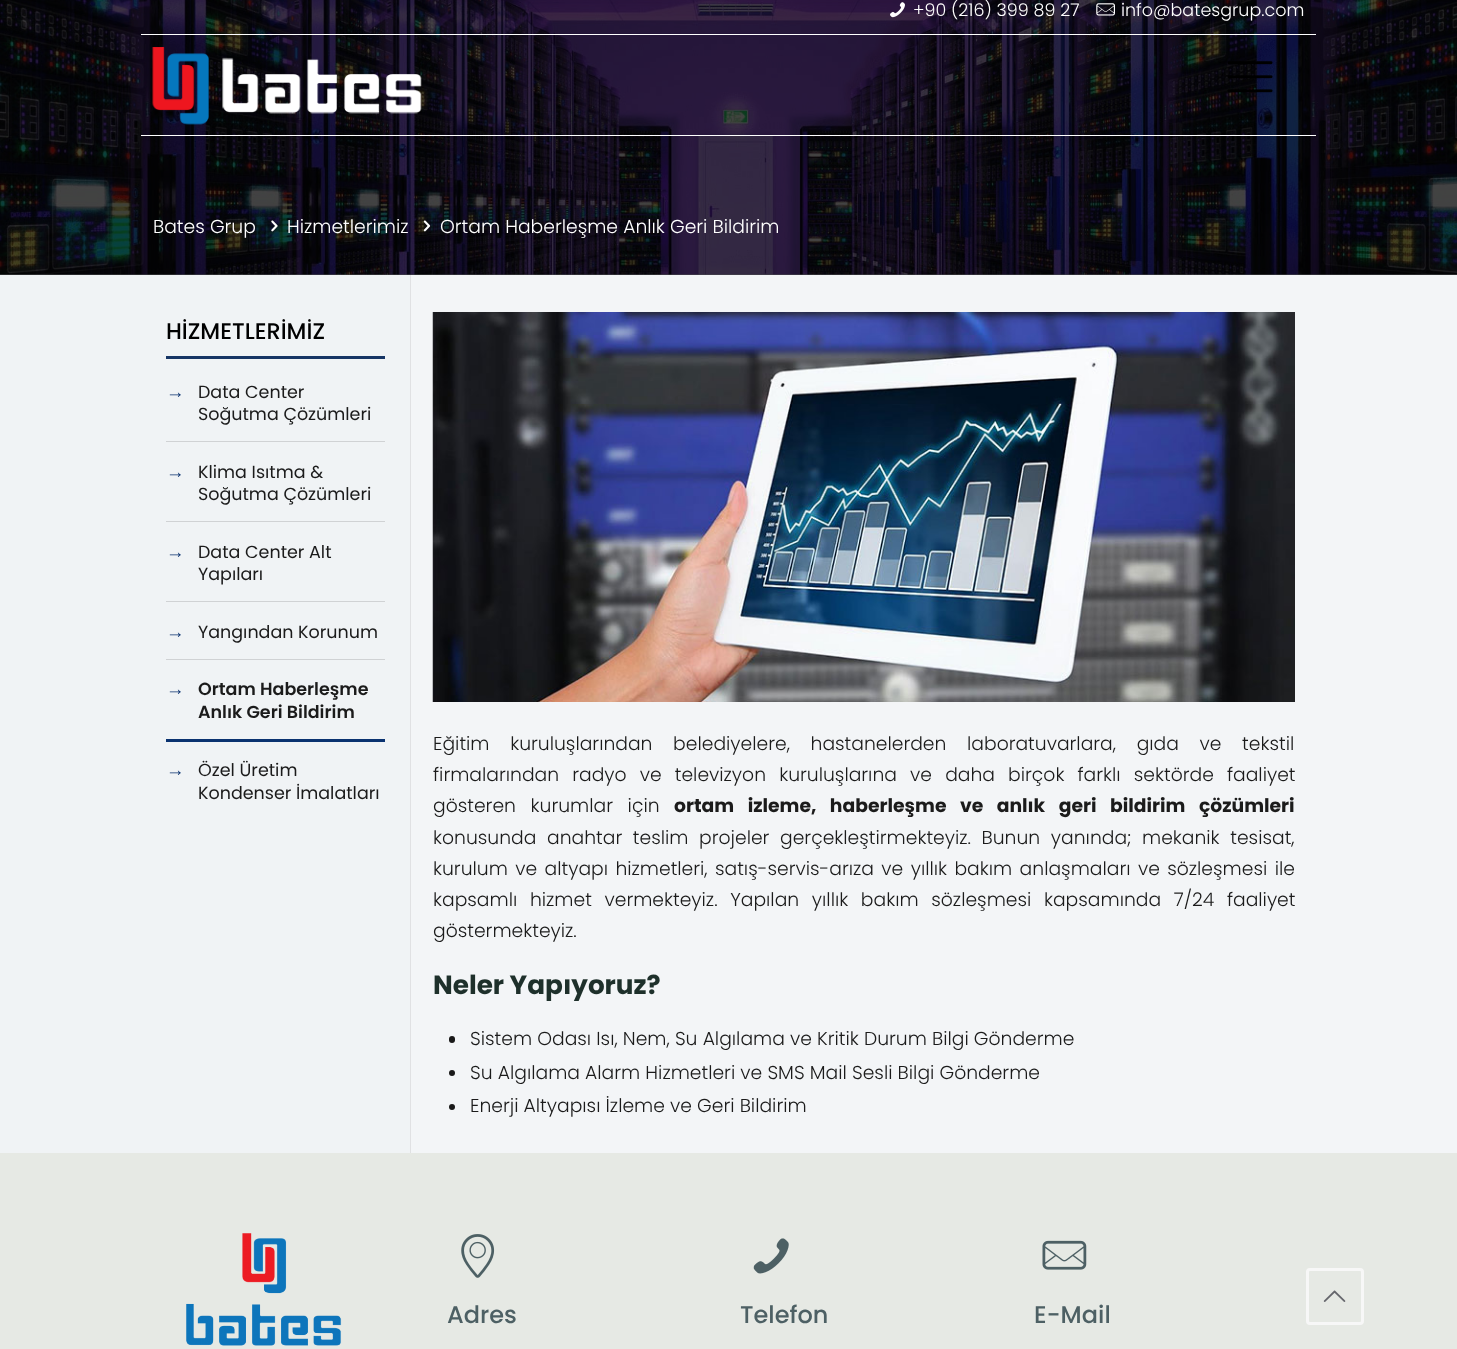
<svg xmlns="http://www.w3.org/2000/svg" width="1457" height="1349">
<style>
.a{font:300 17.5px Poppins;fill:#fff}
.b{font:300 18.75px Poppins;fill:#fff}
.c{font:500 22.5px Poppins;fill:#000}
.d{font:18.75px Liberation Sans;fill:#0a3270}
.e{font:17.5px Poppins;fill:#1b1b1b}
.f{font:600 17.5px Poppins;fill:#1b1b1b}
.g{font:300 18.75px Poppins;fill:#1b1b1b}
.h{font:bold 18.75px Poppins;fill:#1b1b1b}
.i{font:bold 26.25px Poppins;fill:#1e302b}
.j{font:500 24px Poppins;fill:#4d6064}
</style>
<rect width="100%" height="100%" fill="#f3f5f7"/>
<path fill="#4a4c4e" d="M0 274h1457v1H0z"/>
<image href="5.png" x="0" y="0" width="1457" height="275"/>
<image href="1.png" x="890" y="2" width="15" height="16"/>
<image href="2.png" x="1096" y="3" width="19" height="13"/>
<path fill="#fff" d="M141 34h1175v1H141z"/>
<path fill="#fff" d="M141 135h1175v1H141z"/>
<image href="3.png" x="152" y="47" width="270" height="78"/>
<image href="4.png" x="1227" y="61" width="46" height="32"/>
<image href="6.png" x="271" y="220" width="7" height="12"/>
<image href="7.png" x="423" y="220" width="8" height="12"/>
<path fill="#e0e1e3" d="M410 275h1v878H410z"/>
<path fill="#f0f3f5" d="M0 275h410v878H0z"/>
<path fill="#163565" d="M166 356h219v3H166z"/>
<path fill="#d0d2d4" d="M166 441h219v1H166z"/>
<path fill="#d0d2d4" d="M166 521h219v1H166z"/>
<path fill="#d0d2d4" d="M166 601h219v1H166z"/>
<path fill="#d0d2d4" d="M166 659h219v1H166z"/>
<path fill="#0a3270" d="M166 739h219v3H166z"/>
<image href="8.png" x="432" y="312" width="863" height="390"/>
<rect fill="#191919" x="449" y="1036" width="6" height="7" rx="3"/>
<circle fill="#191919" cx="452" cy="1073" r="3"/>
<circle fill="#191919" cx="452" cy="1107" r="3"/>
<path fill="#e6e9e4" d="M0 1153h1457v196H0z"/>
<image href="9.png" x="186" y="1233" width="156" height="113"/>
<image href="10.png" x="461" y="1234" width="34" height="44"/>
<image href="11.png" x="753" y="1238" width="36" height="36"/>
<image href="12.png" x="1042" y="1240" width="45" height="30"/>
<rect fill="none" stroke="#f7f7f7" stroke-width="3" x="1307.5" y="1269.5" width="55" height="54" rx="2.5"/>
<image href="13.png" x="1323" y="1290" width="23" height="12"/>
<text class="a" x="913" y="16">+90 (216) 399 89 27</text>
<text class="a" x="1121" y="16">info@batesgrup.com</text>
<text class="b" x="153" y="233">Bates Grup</text>
<text class="b" x="287" y="233">Hizmetlerimiz</text>
<text class="b" x="440" y="233">Ortam Haberleşme Anlık Geri Bildirim</text>
<text class="c" x="166" y="339">HİZMETLERİMİZ</text>
<text class="d" x="166" y="398">→</text>
<text class="e" x="198" y="398">Data Center</text>
<text class="e" x="198" y="420">Soğutma Çözümleri</text>
<text class="d" x="166" y="478">→</text>
<text class="e" x="198" y="478">Klima Isıtma &amp;</text>
<text class="e" x="198" y="500">Soğutma Çözümleri</text>
<text class="d" x="166" y="558">→</text>
<text class="e" x="198" y="558">Data Center Alt</text>
<text class="e" x="198" y="580">Yapıları</text>
<text class="d" x="166" y="638">→</text>
<text class="e" x="198" y="638">Yangından Korunum</text>
<text class="d" x="166" y="695">→</text>
<text class="f" x="198" y="695">Ortam Haberleşme</text>
<text class="f" x="198" y="718">Anlık Geri Bildirim</text>
<text class="d" x="166" y="776">→</text>
<text class="e" x="198" y="776">Özel Üretim</text>
<text class="e" x="198" y="799">Kondenser İmalatları</text>
<text class="g" x="433" y="750" word-spacing="15.5">Eğitim kuruluşlarından belediyelere, hastanelerden laboratuvarlara, gıda ve tekstil</text>
<text class="g" x="433" y="781" word-spacing="8">firmalarından radyo ve televizyon kuruluşlarına ve daha birçok farklı sektörde faaliyet</text>
<text class="g" x="433" y="812" word-spacing="9.5">gösteren kurumlar için</text>
<text class="h" x="674" y="812" word-spacing="9.5">ortam izleme, haberleşme ve anlık geri bildirim çözümleri</text>
<text class="g" x="433" y="844" word-spacing="5.5">konusunda anahtar teslim projeler gerçekleştirmekteyiz. Bunun yanında; mekanik tesisat,</text>
<text class="g" x="433" y="875" word-spacing="2.25">kurulum ve altyapı hizmetleri, satış-servis-arıza ve yıllık bakım anlaşmaları ve sözleşmesi ile</text>
<text class="g" x="433" y="906" word-spacing="7.5">kapsamlı hizmet vermekteyiz. Yapılan yıllık bakım sözleşmesi kapsamında 7/24 faaliyet</text>
<text class="g" x="433" y="937">göstermekteyiz.</text>
<text class="i" x="433" y="994">Neler Yapıyoruz?</text>
<text class="g" x="470" y="1045">Sistem Odası Isı, Nem, Su Algılama ve Kritik Durum Bilgi Gönderme</text>
<text class="g" x="470" y="1079">Su Algılama Alarm Hizmetleri ve SMS Mail Sesli Bilgi Gönderme</text>
<text class="g" x="470" y="1112">Enerji Altyapısı İzleme ve Geri Bildirim</text>
<text class="j" x="447" y="1323">Adres</text>
<text class="j" x="740" y="1323">Telefon</text>
<text class="j" x="1034" y="1323">E-Mail</text>
</svg>
